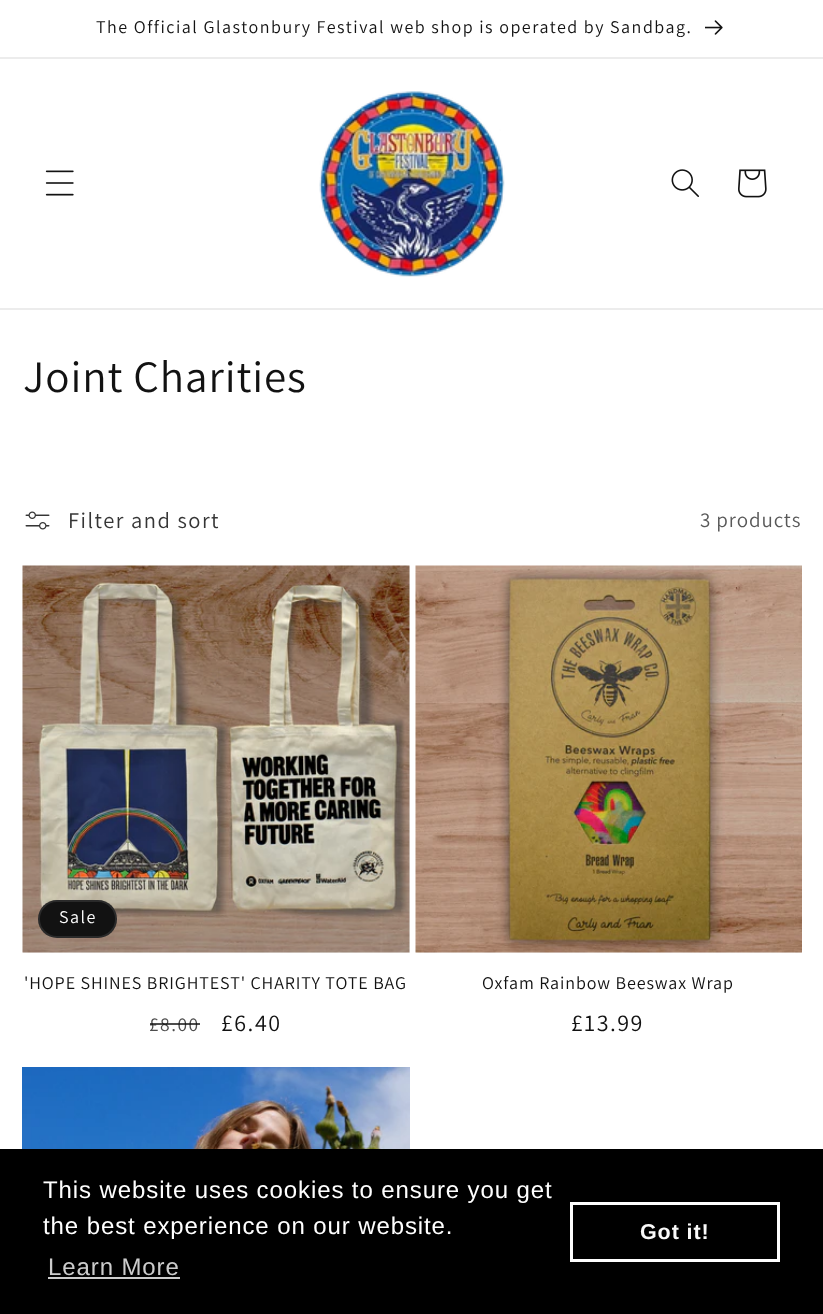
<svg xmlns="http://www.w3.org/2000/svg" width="823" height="1314">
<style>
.a{font:18px Assistant;letter-spacing:1.5px;fill:#121212}
.b{font:45px Assistant;letter-spacing:0.9px;fill:#121212}
.c{font:22.5px Assistant;letter-spacing:1.5px;fill:#363636}
.d{font:21px Assistant;letter-spacing:0.9px;fill:#595959}
.e{font:18px Assistant;letter-spacing:1.5px;fill:#fff}
.f{font:18px Assistant;letter-spacing:0.9px;fill:#121212}
.g{font:19.5px Assistant;letter-spacing:1.5px;fill:#4d4d4d}
.h{font:24px Assistant;letter-spacing:1.5px;fill:#121212}
.i{font:24px Liberation Sans;letter-spacing:0.9px;fill:#fff}
.j{font:24px Liberation Sans;letter-spacing:0.9px;fill:#ccc}
.k{font:bold 21.5px Liberation Sans;letter-spacing:0.9px;fill:#f9f9f9}
</style>
<rect width="100%" height="100%" fill="#fff"/>
<path fill="#ececec" d="M0 57h823v2H0z"/>
<image href="1.png" x="705" y="20" width="18" height="15"/>
<path fill="#ececec" d="M0 308h823v2H0z"/>
<image href="2.png" x="45" y="170" width="29" height="26"/>
<image href="3.png" x="319" y="91" width="186" height="186"/>
<image href="4.png" x="671" y="169" width="28" height="28"/>
<image href="5.png" x="738" y="169" width="29" height="29"/>
<image href="6.png" x="25" y="511" width="25" height="19"/>
<path fill="#f3f3f3" d="M23 566h387v387H23z"/>
<image href="7.png" x="22" y="565" width="388" height="388"/>
<rect fill="#121212" x="38" y="900" width="79" height="38" rx="19"/>
<rect fill="none" stroke="#ffffff1a" stroke-width="2" x="39" y="901" width="77" height="36" rx="18"/>
<path fill="#f3f3f3" d="M416 952h385v1H416z"/>
<image href="8.png" x="415" y="565" width="387" height="388"/>
<image href="9.png" x="22" y="1067" width="388" height="82"/>
<path fill="#000" d="M0 1149h823v165H0z"/>
<path fill="#ccc" d="M48 1277h132v2H48z"/>
<path fill="none" stroke="#fdfdfd" stroke-width="3" d="M571.5 1203.5h207v57H571.5z"/>
<text class="a" x="96" y="33">The Official Glastonbury Festival web shop is operated by Sandbag.</text>
<text class="b" x="23" y="392">Joint Charities</text>
<text class="c" x="68" y="528">Filter and sort</text>
<text class="d" x="700" y="527">3 products</text>
<text class="e" x="59" y="923">Sale</text>
<text class="f" x="24" y="989">'HOPE SHINES BRIGHTEST' CHARITY TOTE BAG</text>
<text class="g" x="149" y="1031">£8.00</text>
<path fill="#121212bf" d="M150 1023h50v2H150z"/>
<text class="h" x="221" y="1031">£6.40</text>
<text class="f" x="482" y="989">Oxfam Rainbow Beeswax Wrap</text>
<text class="h" x="571" y="1031">£13.99</text>
<text class="i" x="43" y="1198">This website uses cookies to ensure you get</text>
<text class="i" x="43" y="1234">the best experience on our website.</text>
<text class="j" x="48" y="1275">Learn More</text>
<text class="k" x="640" y="1239">Got it!</text>
</svg>
